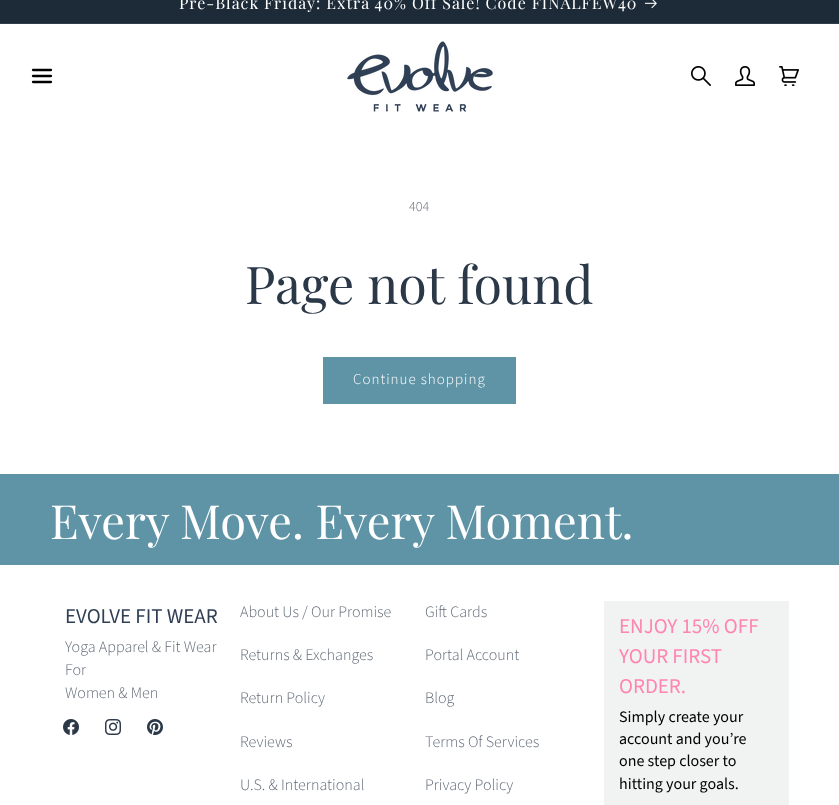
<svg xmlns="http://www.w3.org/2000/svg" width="839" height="805">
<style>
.a{font:16px Playfair Display;letter-spacing:1px;fill:#fff}
.b{font:300 14px Source Sans Pro;fill:#606a76}
.c{font:52px Playfair Display;fill:#2b3848}
.d{font:300 15px Source Sans Pro;letter-spacing:1px;fill:#fff}
.e{font:47px Playfair Display;fill:#fff}
.f{font:21px 'Source Sans 3';fill:#2f3f54}
.g{font:300 16px 'Source Sans 3';fill:#606a76}
.h{font:21px 'Source Sans 3';fill:#ff85b0}
.i{font:16px 'Source Sans 3';fill:#000}
</style>
<rect width="100%" height="100%" fill="#fff"/>
<path fill="#1d2b39" d="M0 0h839v23H0z"/>
<path fill="#2f3c49" d="M0 23h839v1H0z"/>
<image href="1.png" x="645" y="0" width="12" height="9"/>
<path fill="none" stroke="#000" stroke-width="2.3" stroke-linecap="round" stroke-linejoin="round" d="M33 76h18m-18-6h18m-18 12h18"/>
<image href="2.png" x="347" y="41" width="146" height="71"/>
<image href="3.png" x="691" y="66" width="20" height="20"/>
<image href="4.png" x="735" y="66" width="20" height="20"/>
<image href="5.png" x="779" y="66" width="20" height="20"/>
<path fill="#5f94a6" d="M323 357h193v47H323z"/>
<path fill="#5f94a6" d="M0 474h839v91H0z"/>
<image href="6.png" x="63" y="719" width="16" height="16"/>
<image href="7.png" x="105" y="719" width="16" height="16"/>
<image href="8.png" x="147" y="719" width="16" height="16"/>
<path fill="#f1f3f3" d="M604 601h185v204H604z"/>
<text class="a" x="179" y="9">Pre-Black Friday: Extra 40% Off Sale! Code FINALFEW40</text>
<text class="b" x="409" y="211">404</text>
<text class="c" x="245" y="304">Page not found</text>
<text class="d" x="353" y="384">Continue shopping</text>
<text class="e" x="50" y="539">Every Move. Every Moment.</text>
<text class="f" x="65" y="623">EVOLVE FIT WEAR</text>
<text class="g" x="65" y="652">Yoga Apparel &amp; Fit Wear</text>
<text class="g" x="65" y="675">For</text>
<text class="g" x="65" y="698">Women &amp; Men</text>
<text class="g" x="240" y="617">About Us / Our Promise</text>
<text class="g" x="240" y="660">Returns &amp; Exchanges</text>
<text class="g" x="240" y="703">Return Policy</text>
<text class="g" x="240" y="747">Reviews</text>
<text class="g" x="240" y="790">U.S. &amp; International</text>
<text class="g" x="425" y="617">Gift Cards</text>
<text class="g" x="425" y="660">Portal Account</text>
<text class="g" x="425" y="703">Blog</text>
<text class="g" x="425" y="747">Terms Of Services</text>
<text class="g" x="425" y="790">Privacy Policy</text>
<text class="h" x="619" y="633">ENJOY 15% OFF</text>
<text class="h" x="619" y="663">YOUR FIRST</text>
<text class="h" x="619" y="693">ORDER.</text>
<text class="i" x="619" y="722">Simply create your</text>
<text class="i" x="619" y="744">account and you’re</text>
<text class="i" x="619" y="766">one step closer to</text>
<text class="i" x="619" y="789">hitting your goals.</text>
</svg>
